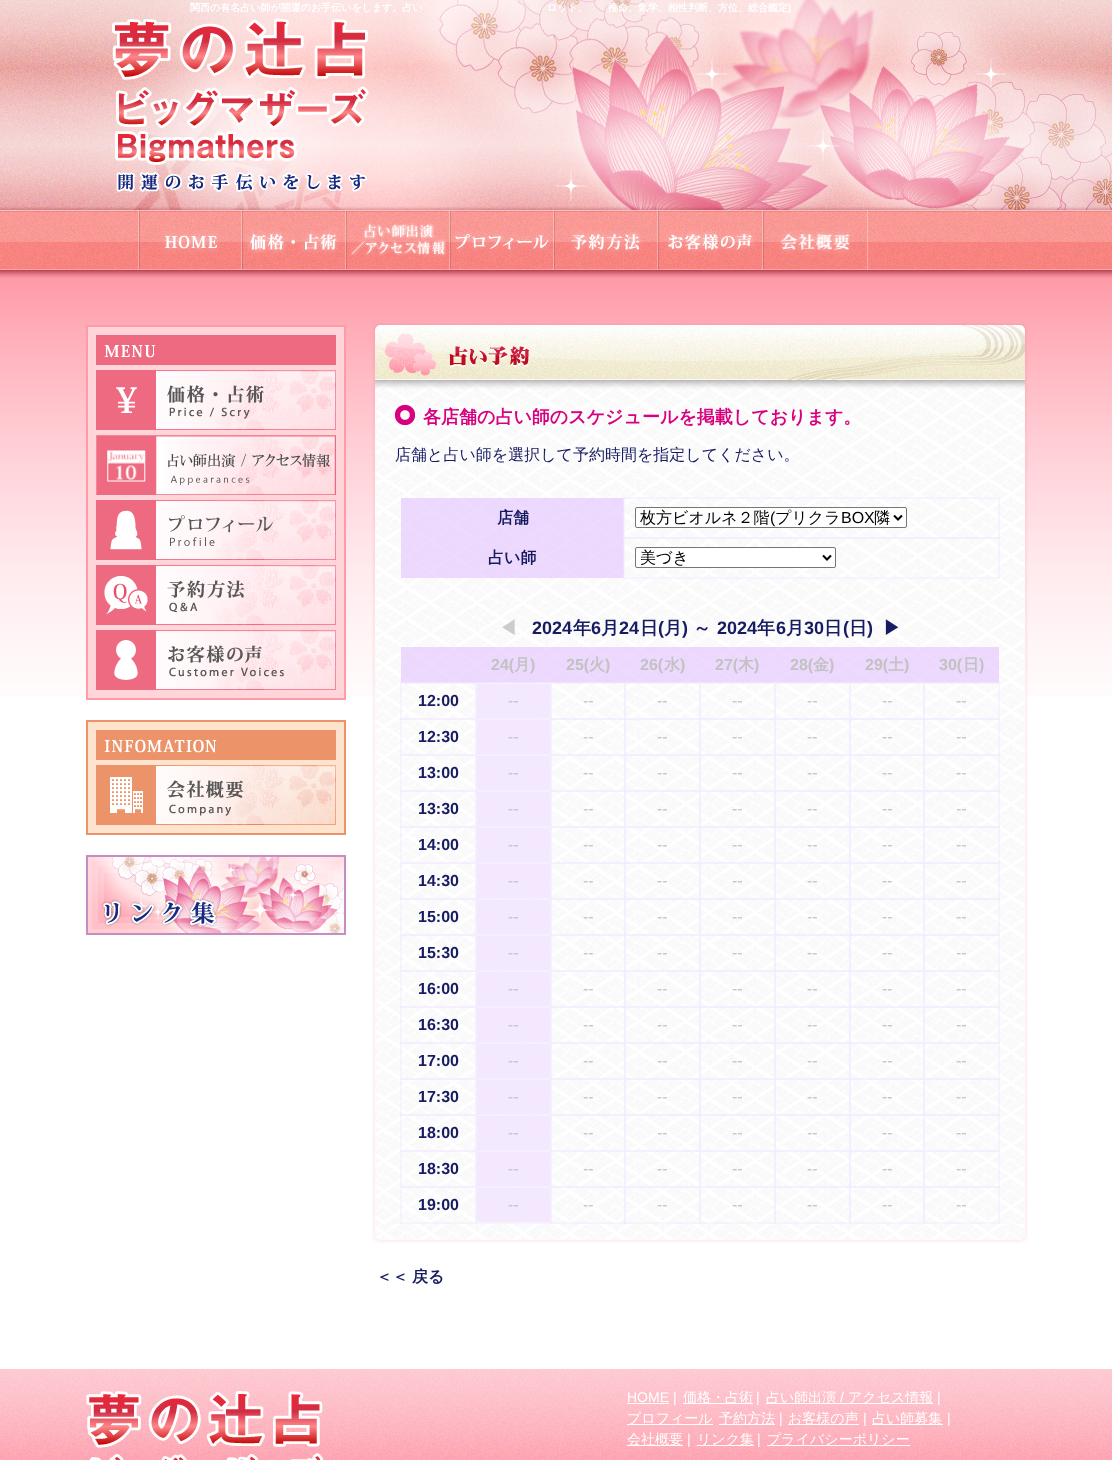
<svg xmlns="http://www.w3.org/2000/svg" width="1112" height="1460">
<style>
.a{font:bold 10px WenQuanYi Zen Hei;fill:#fff}
.b{font:bold 10px Liberation Sans;fill:#fff}
.c{font:bold 18px WenQuanYi Zen Hei;fill:#d7007f}
.d{font:500 16px WenQuanYi Zen Hei;fill:#171c61}
.e{font:bold 16px WenQuanYi Zen Hei;fill:#171c61}
.f{font:500 16px WenQuanYi Zen Hei;fill:#000}
.g{font:16px Liberation Sans;fill:#000}
.h{font:bold 18px WenQuanYi Zen Hei;fill:#ccc}
.i{font:bold 18px Liberation Sans;fill:#171c61}
.j{font:bold 18px WenQuanYi Zen Hei;fill:#171c61}
.k{font:bold 16px Liberation Sans;fill:#c2c2c2}
.l{font:bold 16px WenQuanYi Zen Hei;fill:#c2c2c2}
.m{font:bold 16px Liberation Sans;fill:#171c61}
.n{font:16px Liberation Sans;fill:#c2c2c2}
.o{font:14px Liberation Sans;fill:#fff}
.p{font:500 14px WenQuanYi Zen Hei;fill:#fff}
</style>
<defs>
<clipPath id="clip1"><path d="M624 1391h370v63H624z"/></clipPath>
</defs>
<rect width="100%" height="100%" fill="#fff"/>
<image href="1.png" x="0" y="0" width="1112" height="210"/>
<image href="2.png" x="0" y="210" width="1112" height="70"/>
<image href="3.png" x="138" y="210" width="104" height="60"/>
<image href="4.png" x="242" y="210" width="104" height="60"/>
<image href="5.png" x="346" y="210" width="104" height="60"/>
<image href="6.png" x="450" y="210" width="104" height="60"/>
<image href="7.png" x="554" y="210" width="104" height="60"/>
<image href="8.png" x="658" y="210" width="105" height="60"/>
<image href="9.png" x="763" y="210" width="105" height="60"/>
<image href="10.png" x="0" y="280" width="1112" height="416"/>
<path fill="#ffd5d9" stroke="#ff9ba9" stroke-width="2" d="M87 326h258v373H87z"/>
<image href="11.png" x="96" y="335" width="240" height="30"/>
<image href="12.png" x="96" y="370" width="240" height="60"/>
<image href="13.png" x="96" y="435" width="240" height="60"/>
<image href="14.png" x="96" y="500" width="240" height="60"/>
<image href="15.png" x="96" y="565" width="240" height="60"/>
<image href="16.png" x="96" y="630" width="240" height="60"/>
<path fill="#ffe4cd" stroke="#ed936a" stroke-width="2" d="M87 721h258v113H87z"/>
<image href="17.png" x="96" y="730" width="240" height="30"/>
<image href="18.png" x="96" y="765" width="240" height="60"/>
<image href="19.png" x="86" y="855" width="260" height="80"/>
<image href="20.png" x="372" y="323" width="656" height="68"/>
<image href="21.png" x="372" y="1224" width="656" height="19"/>
<image href="22.png" x="372" y="391" width="656" height="833"/>
<image href="23.png" x="395" y="405" width="20" height="20"/>
<path fill="#e4c1ff99" d="M401 498h223v40H401z"/>
<path fill="#f2ecff80" d="M623 497h377v2H623z"/>
<path fill="#e4c1ff99" d="M401 538h223v40H401z"/>
<path fill="#f2ecff80" d="M623 537h377v2H623z"/>
<path fill="#f2ecff80" d="M998 537h2v42H998z"/>
<path fill="#f2ecff80" d="M998 497h2v42H998z"/>
<path fill="#f2ecff80" d="M623 577h377v2H623z"/>
<path fill="#f2ecff80" d="M623 537h2v42H623z"/>
<path fill="#f2ecff80" d="M623 537h377v2H623z"/>
<path fill="#f2ecff80" d="M623 497h2v42H623z"/>
<rect fill="#fff" stroke="#767676" x="635.5" y="507.5" width="271" height="20" rx="1.5"/>
<path fill="none" stroke="#000" stroke-width="2" d="M894 515.5l4 4l4-4"/>
<rect fill="#fff" stroke="#767676" x="635.5" y="547.5" width="200" height="20" rx="1.5"/>
<path fill="none" stroke="#000" stroke-width="2" d="M823 555.5l4 4l4-4"/>
<path fill="#e4c1ff99" d="M401 647h75v36H401z"/>
<path fill="#e4c1ff99" d="M476 647h75v36H476z"/>
<path fill="#e4c1ff99" d="M551 647h74v36H551z"/>
<path fill="#e4c1ff99" d="M625 647h75v36H625z"/>
<path fill="#e4c1ff99" d="M700 647h75v36H700z"/>
<path fill="#e4c1ff99" d="M775 647h75v36H775z"/>
<path fill="#e4c1ff99" d="M850 647h74v36H850z"/>
<path fill="#e4c1ff99" d="M924 647h75v36H924z"/>
<path fill="#f2ecff80" d="M923 682h77v2H923z"/>
<path fill="#f2ecff80" d="M923 718h77v2H923z"/>
<path fill="#f2ecff80" d="M923 754h77v2H923z"/>
<path fill="#f2ecff80" d="M923 790h77v2H923z"/>
<path fill="#f2ecff80" d="M923 826h77v2H923z"/>
<path fill="#f2ecff80" d="M923 862h77v2H923z"/>
<path fill="#f2ecff80" d="M923 898h77v2H923z"/>
<path fill="#f2ecff80" d="M923 934h77v2H923z"/>
<path fill="#f2ecff80" d="M923 970h77v2H923z"/>
<path fill="#f2ecff80" d="M923 1006h77v2H923z"/>
<path fill="#f2ecff80" d="M923 1042h77v2H923z"/>
<path fill="#f2ecff80" d="M923 1078h77v2H923z"/>
<path fill="#f2ecff80" d="M923 1114h77v2H923z"/>
<path fill="#f2ecff80" d="M923 1150h77v2H923z"/>
<path fill="#f2ecff80" d="M923 1186h77v2H923z"/>
<path fill="#f2ecff80" d="M998 1186h2v38H998z"/>
<path fill="#f2ecff80" d="M998 1150h2v38H998z"/>
<path fill="#f2ecff80" d="M998 1114h2v38H998z"/>
<path fill="#f2ecff80" d="M998 1078h2v38H998z"/>
<path fill="#f2ecff80" d="M998 1042h2v38H998z"/>
<path fill="#f2ecff80" d="M998 1006h2v38H998z"/>
<path fill="#f2ecff80" d="M998 970h2v38H998z"/>
<path fill="#f2ecff80" d="M998 934h2v38H998z"/>
<path fill="#f2ecff80" d="M998 898h2v38H998z"/>
<path fill="#f2ecff80" d="M998 862h2v38H998z"/>
<path fill="#f2ecff80" d="M998 826h2v38H998z"/>
<path fill="#f2ecff80" d="M998 790h2v38H998z"/>
<path fill="#f2ecff80" d="M998 754h2v38H998z"/>
<path fill="#f2ecff80" d="M998 718h2v38H998z"/>
<path fill="#f2ecff80" d="M998 682h2v38H998z"/>
<path fill="#f2ecff80" d="M923 1222h77v2H923z"/>
<path fill="#f2ecff80" d="M923 1186h2v38H923z"/>
<path fill="#f2ecff80" d="M849 1186h76v2H849z"/>
<path fill="#f2ecff80" d="M923 1186h2v38H923z"/>
<path fill="#f2ecff80" d="M923 1186h77v2H923z"/>
<path fill="#f2ecff80" d="M923 1150h2v38H923z"/>
<path fill="#f2ecff80" d="M849 1150h76v2H849z"/>
<path fill="#f2ecff80" d="M923 1150h2v38H923z"/>
<path fill="#f2ecff80" d="M923 1150h77v2H923z"/>
<path fill="#f2ecff80" d="M923 1114h2v38H923z"/>
<path fill="#f2ecff80" d="M849 1114h76v2H849z"/>
<path fill="#f2ecff80" d="M923 1114h2v38H923z"/>
<path fill="#f2ecff80" d="M923 1114h77v2H923z"/>
<path fill="#f2ecff80" d="M923 1078h2v38H923z"/>
<path fill="#f2ecff80" d="M849 1078h76v2H849z"/>
<path fill="#f2ecff80" d="M923 1078h2v38H923z"/>
<path fill="#f2ecff80" d="M923 1078h77v2H923z"/>
<path fill="#f2ecff80" d="M923 1042h2v38H923z"/>
<path fill="#f2ecff80" d="M849 1042h76v2H849z"/>
<path fill="#f2ecff80" d="M923 1042h2v38H923z"/>
<path fill="#f2ecff80" d="M923 1042h77v2H923z"/>
<path fill="#f2ecff80" d="M923 1006h2v38H923z"/>
<path fill="#f2ecff80" d="M849 1006h76v2H849z"/>
<path fill="#f2ecff80" d="M923 1006h2v38H923z"/>
<path fill="#f2ecff80" d="M923 1006h77v2H923z"/>
<path fill="#f2ecff80" d="M923 970h2v38H923z"/>
<path fill="#f2ecff80" d="M849 970h76v2H849z"/>
<path fill="#f2ecff80" d="M923 970h2v38H923z"/>
<path fill="#f2ecff80" d="M923 970h77v2H923z"/>
<path fill="#f2ecff80" d="M923 934h2v38H923z"/>
<path fill="#f2ecff80" d="M849 934h76v2H849z"/>
<path fill="#f2ecff80" d="M923 934h2v38H923z"/>
<path fill="#f2ecff80" d="M923 934h77v2H923z"/>
<path fill="#f2ecff80" d="M923 898h2v38H923z"/>
<path fill="#f2ecff80" d="M849 898h76v2H849z"/>
<path fill="#f2ecff80" d="M923 898h2v38H923z"/>
<path fill="#f2ecff80" d="M923 898h77v2H923z"/>
<path fill="#f2ecff80" d="M923 862h2v38H923z"/>
<path fill="#f2ecff80" d="M849 862h76v2H849z"/>
<path fill="#f2ecff80" d="M923 862h2v38H923z"/>
<path fill="#f2ecff80" d="M923 862h77v2H923z"/>
<path fill="#f2ecff80" d="M923 826h2v38H923z"/>
<path fill="#f2ecff80" d="M849 826h76v2H849z"/>
<path fill="#f2ecff80" d="M923 826h2v38H923z"/>
<path fill="#f2ecff80" d="M923 826h77v2H923z"/>
<path fill="#f2ecff80" d="M923 790h2v38H923z"/>
<path fill="#f2ecff80" d="M849 790h76v2H849z"/>
<path fill="#f2ecff80" d="M923 790h2v38H923z"/>
<path fill="#f2ecff80" d="M923 790h77v2H923z"/>
<path fill="#f2ecff80" d="M923 754h2v38H923z"/>
<path fill="#f2ecff80" d="M849 754h76v2H849z"/>
<path fill="#f2ecff80" d="M923 754h2v38H923z"/>
<path fill="#f2ecff80" d="M923 754h77v2H923z"/>
<path fill="#f2ecff80" d="M923 718h2v38H923z"/>
<path fill="#f2ecff80" d="M849 718h76v2H849z"/>
<path fill="#f2ecff80" d="M923 718h2v38H923z"/>
<path fill="#f2ecff80" d="M923 718h77v2H923z"/>
<path fill="#f2ecff80" d="M923 682h2v38H923z"/>
<path fill="#f2ecff80" d="M849 682h76v2H849z"/>
<path fill="#f2ecff80" d="M923 682h2v38H923z"/>
<path fill="#f2ecff80" d="M849 1222h76v2H849z"/>
<path fill="#f2ecff80" d="M849 1186h2v38H849z"/>
<path fill="#f2ecff80" d="M774 1186h77v2H774z"/>
<path fill="#f2ecff80" d="M849 1186h2v38H849z"/>
<path fill="#f2ecff80" d="M849 1186h76v2H849z"/>
<path fill="#f2ecff80" d="M849 1150h2v38H849z"/>
<path fill="#f2ecff80" d="M774 1150h77v2H774z"/>
<path fill="#f2ecff80" d="M849 1150h2v38H849z"/>
<path fill="#f2ecff80" d="M849 1150h76v2H849z"/>
<path fill="#f2ecff80" d="M849 1114h2v38H849z"/>
<path fill="#f2ecff80" d="M774 1114h77v2H774z"/>
<path fill="#f2ecff80" d="M849 1114h2v38H849z"/>
<path fill="#f2ecff80" d="M849 1114h76v2H849z"/>
<path fill="#f2ecff80" d="M849 1078h2v38H849z"/>
<path fill="#f2ecff80" d="M774 1078h77v2H774z"/>
<path fill="#f2ecff80" d="M849 1078h2v38H849z"/>
<path fill="#f2ecff80" d="M849 1078h76v2H849z"/>
<path fill="#f2ecff80" d="M849 1042h2v38H849z"/>
<path fill="#f2ecff80" d="M774 1042h77v2H774z"/>
<path fill="#f2ecff80" d="M849 1042h2v38H849z"/>
<path fill="#f2ecff80" d="M849 1042h76v2H849z"/>
<path fill="#f2ecff80" d="M849 1006h2v38H849z"/>
<path fill="#f2ecff80" d="M774 1006h77v2H774z"/>
<path fill="#f2ecff80" d="M849 1006h2v38H849z"/>
<path fill="#f2ecff80" d="M849 1006h76v2H849z"/>
<path fill="#f2ecff80" d="M849 970h2v38H849z"/>
<path fill="#f2ecff80" d="M774 970h77v2H774z"/>
<path fill="#f2ecff80" d="M849 970h2v38H849z"/>
<path fill="#f2ecff80" d="M849 970h76v2H849z"/>
<path fill="#f2ecff80" d="M849 934h2v38H849z"/>
<path fill="#f2ecff80" d="M774 934h77v2H774z"/>
<path fill="#f2ecff80" d="M849 934h2v38H849z"/>
<path fill="#f2ecff80" d="M849 934h76v2H849z"/>
<path fill="#f2ecff80" d="M849 898h2v38H849z"/>
<path fill="#f2ecff80" d="M774 898h77v2H774z"/>
<path fill="#f2ecff80" d="M849 898h2v38H849z"/>
<path fill="#f2ecff80" d="M849 898h76v2H849z"/>
<path fill="#f2ecff80" d="M849 862h2v38H849z"/>
<path fill="#f2ecff80" d="M774 862h77v2H774z"/>
<path fill="#f2ecff80" d="M849 862h2v38H849z"/>
<path fill="#f2ecff80" d="M849 862h76v2H849z"/>
<path fill="#f2ecff80" d="M849 826h2v38H849z"/>
<path fill="#f2ecff80" d="M774 826h77v2H774z"/>
<path fill="#f2ecff80" d="M849 826h2v38H849z"/>
<path fill="#f2ecff80" d="M849 826h76v2H849z"/>
<path fill="#f2ecff80" d="M849 790h2v38H849z"/>
<path fill="#f2ecff80" d="M774 790h77v2H774z"/>
<path fill="#f2ecff80" d="M849 790h2v38H849z"/>
<path fill="#f2ecff80" d="M849 790h76v2H849z"/>
<path fill="#f2ecff80" d="M849 754h2v38H849z"/>
<path fill="#f2ecff80" d="M774 754h77v2H774z"/>
<path fill="#f2ecff80" d="M849 754h2v38H849z"/>
<path fill="#f2ecff80" d="M849 754h76v2H849z"/>
<path fill="#f2ecff80" d="M849 718h2v38H849z"/>
<path fill="#f2ecff80" d="M774 718h77v2H774z"/>
<path fill="#f2ecff80" d="M849 718h2v38H849z"/>
<path fill="#f2ecff80" d="M849 718h76v2H849z"/>
<path fill="#f2ecff80" d="M849 682h2v38H849z"/>
<path fill="#f2ecff80" d="M774 682h77v2H774z"/>
<path fill="#f2ecff80" d="M849 682h2v38H849z"/>
<path fill="#f2ecff80" d="M774 1222h77v2H774z"/>
<path fill="#f2ecff80" d="M774 1186h2v38H774z"/>
<path fill="#f2ecff80" d="M699 1186h77v2H699z"/>
<path fill="#f2ecff80" d="M774 1186h2v38H774z"/>
<path fill="#f2ecff80" d="M774 1186h77v2H774z"/>
<path fill="#f2ecff80" d="M774 1150h2v38H774z"/>
<path fill="#f2ecff80" d="M699 1150h77v2H699z"/>
<path fill="#f2ecff80" d="M774 1150h2v38H774z"/>
<path fill="#f2ecff80" d="M774 1150h77v2H774z"/>
<path fill="#f2ecff80" d="M774 1114h2v38H774z"/>
<path fill="#f2ecff80" d="M699 1114h77v2H699z"/>
<path fill="#f2ecff80" d="M774 1114h2v38H774z"/>
<path fill="#f2ecff80" d="M774 1114h77v2H774z"/>
<path fill="#f2ecff80" d="M774 1078h2v38H774z"/>
<path fill="#f2ecff80" d="M699 1078h77v2H699z"/>
<path fill="#f2ecff80" d="M774 1078h2v38H774z"/>
<path fill="#f2ecff80" d="M774 1078h77v2H774z"/>
<path fill="#f2ecff80" d="M774 1042h2v38H774z"/>
<path fill="#f2ecff80" d="M699 1042h77v2H699z"/>
<path fill="#f2ecff80" d="M774 1042h2v38H774z"/>
<path fill="#f2ecff80" d="M774 1042h77v2H774z"/>
<path fill="#f2ecff80" d="M774 1006h2v38H774z"/>
<path fill="#f2ecff80" d="M699 1006h77v2H699z"/>
<path fill="#f2ecff80" d="M774 1006h2v38H774z"/>
<path fill="#f2ecff80" d="M774 1006h77v2H774z"/>
<path fill="#f2ecff80" d="M774 970h2v38H774z"/>
<path fill="#f2ecff80" d="M699 970h77v2H699z"/>
<path fill="#f2ecff80" d="M774 970h2v38H774z"/>
<path fill="#f2ecff80" d="M774 970h77v2H774z"/>
<path fill="#f2ecff80" d="M774 934h2v38H774z"/>
<path fill="#f2ecff80" d="M699 934h77v2H699z"/>
<path fill="#f2ecff80" d="M774 934h2v38H774z"/>
<path fill="#f2ecff80" d="M774 934h77v2H774z"/>
<path fill="#f2ecff80" d="M774 898h2v38H774z"/>
<path fill="#f2ecff80" d="M699 898h77v2H699z"/>
<path fill="#f2ecff80" d="M774 898h2v38H774z"/>
<path fill="#f2ecff80" d="M774 898h77v2H774z"/>
<path fill="#f2ecff80" d="M774 862h2v38H774z"/>
<path fill="#f2ecff80" d="M699 862h77v2H699z"/>
<path fill="#f2ecff80" d="M774 862h2v38H774z"/>
<path fill="#f2ecff80" d="M774 862h77v2H774z"/>
<path fill="#f2ecff80" d="M774 826h2v38H774z"/>
<path fill="#f2ecff80" d="M699 826h77v2H699z"/>
<path fill="#f2ecff80" d="M774 826h2v38H774z"/>
<path fill="#f2ecff80" d="M774 826h77v2H774z"/>
<path fill="#f2ecff80" d="M774 790h2v38H774z"/>
<path fill="#f2ecff80" d="M699 790h77v2H699z"/>
<path fill="#f2ecff80" d="M774 790h2v38H774z"/>
<path fill="#f2ecff80" d="M774 790h77v2H774z"/>
<path fill="#f2ecff80" d="M774 754h2v38H774z"/>
<path fill="#f2ecff80" d="M699 754h77v2H699z"/>
<path fill="#f2ecff80" d="M774 754h2v38H774z"/>
<path fill="#f2ecff80" d="M774 754h77v2H774z"/>
<path fill="#f2ecff80" d="M774 718h2v38H774z"/>
<path fill="#f2ecff80" d="M699 718h77v2H699z"/>
<path fill="#f2ecff80" d="M774 718h2v38H774z"/>
<path fill="#f2ecff80" d="M774 718h77v2H774z"/>
<path fill="#f2ecff80" d="M774 682h2v38H774z"/>
<path fill="#f2ecff80" d="M699 682h77v2H699z"/>
<path fill="#f2ecff80" d="M774 682h2v38H774z"/>
<path fill="#f2ecff80" d="M699 1222h77v2H699z"/>
<path fill="#f2ecff80" d="M699 1186h2v38H699z"/>
<path fill="#f2ecff80" d="M624 1186h77v2H624z"/>
<path fill="#f2ecff80" d="M699 1186h2v38H699z"/>
<path fill="#f2ecff80" d="M699 1186h77v2H699z"/>
<path fill="#f2ecff80" d="M699 1150h2v38H699z"/>
<path fill="#f2ecff80" d="M624 1150h77v2H624z"/>
<path fill="#f2ecff80" d="M699 1150h2v38H699z"/>
<path fill="#f2ecff80" d="M699 1150h77v2H699z"/>
<path fill="#f2ecff80" d="M699 1114h2v38H699z"/>
<path fill="#f2ecff80" d="M624 1114h77v2H624z"/>
<path fill="#f2ecff80" d="M699 1114h2v38H699z"/>
<path fill="#f2ecff80" d="M699 1114h77v2H699z"/>
<path fill="#f2ecff80" d="M699 1078h2v38H699z"/>
<path fill="#f2ecff80" d="M624 1078h77v2H624z"/>
<path fill="#f2ecff80" d="M699 1078h2v38H699z"/>
<path fill="#f2ecff80" d="M699 1078h77v2H699z"/>
<path fill="#f2ecff80" d="M699 1042h2v38H699z"/>
<path fill="#f2ecff80" d="M624 1042h77v2H624z"/>
<path fill="#f2ecff80" d="M699 1042h2v38H699z"/>
<path fill="#f2ecff80" d="M699 1042h77v2H699z"/>
<path fill="#f2ecff80" d="M699 1006h2v38H699z"/>
<path fill="#f2ecff80" d="M624 1006h77v2H624z"/>
<path fill="#f2ecff80" d="M699 1006h2v38H699z"/>
<path fill="#f2ecff80" d="M699 1006h77v2H699z"/>
<path fill="#f2ecff80" d="M699 970h2v38H699z"/>
<path fill="#f2ecff80" d="M624 970h77v2H624z"/>
<path fill="#f2ecff80" d="M699 970h2v38H699z"/>
<path fill="#f2ecff80" d="M699 970h77v2H699z"/>
<path fill="#f2ecff80" d="M699 934h2v38H699z"/>
<path fill="#f2ecff80" d="M624 934h77v2H624z"/>
<path fill="#f2ecff80" d="M699 934h2v38H699z"/>
<path fill="#f2ecff80" d="M699 934h77v2H699z"/>
<path fill="#f2ecff80" d="M699 898h2v38H699z"/>
<path fill="#f2ecff80" d="M624 898h77v2H624z"/>
<path fill="#f2ecff80" d="M699 898h2v38H699z"/>
<path fill="#f2ecff80" d="M699 898h77v2H699z"/>
<path fill="#f2ecff80" d="M699 862h2v38H699z"/>
<path fill="#f2ecff80" d="M624 862h77v2H624z"/>
<path fill="#f2ecff80" d="M699 862h2v38H699z"/>
<path fill="#f2ecff80" d="M699 862h77v2H699z"/>
<path fill="#f2ecff80" d="M699 826h2v38H699z"/>
<path fill="#f2ecff80" d="M624 826h77v2H624z"/>
<path fill="#f2ecff80" d="M699 826h2v38H699z"/>
<path fill="#f2ecff80" d="M699 826h77v2H699z"/>
<path fill="#f2ecff80" d="M699 790h2v38H699z"/>
<path fill="#f2ecff80" d="M624 790h77v2H624z"/>
<path fill="#f2ecff80" d="M699 790h2v38H699z"/>
<path fill="#f2ecff80" d="M699 790h77v2H699z"/>
<path fill="#f2ecff80" d="M699 754h2v38H699z"/>
<path fill="#f2ecff80" d="M624 754h77v2H624z"/>
<path fill="#f2ecff80" d="M699 754h2v38H699z"/>
<path fill="#f2ecff80" d="M699 754h77v2H699z"/>
<path fill="#f2ecff80" d="M699 718h2v38H699z"/>
<path fill="#f2ecff80" d="M624 718h77v2H624z"/>
<path fill="#f2ecff80" d="M699 718h2v38H699z"/>
<path fill="#f2ecff80" d="M699 718h77v2H699z"/>
<path fill="#f2ecff80" d="M699 682h2v38H699z"/>
<path fill="#f2ecff80" d="M624 682h77v2H624z"/>
<path fill="#f2ecff80" d="M699 682h2v38H699z"/>
<path fill="#f2ecff80" d="M624 1222h77v2H624z"/>
<path fill="#f2ecff80" d="M624 1186h2v38H624z"/>
<path fill="#f2ecff80" d="M550 1186h76v2H550z"/>
<path fill="#f2ecff80" d="M624 1186h2v38H624z"/>
<path fill="#f2ecff80" d="M624 1186h77v2H624z"/>
<path fill="#f2ecff80" d="M624 1150h2v38H624z"/>
<path fill="#f2ecff80" d="M550 1150h76v2H550z"/>
<path fill="#f2ecff80" d="M624 1150h2v38H624z"/>
<path fill="#f2ecff80" d="M624 1150h77v2H624z"/>
<path fill="#f2ecff80" d="M624 1114h2v38H624z"/>
<path fill="#f2ecff80" d="M550 1114h76v2H550z"/>
<path fill="#f2ecff80" d="M624 1114h2v38H624z"/>
<path fill="#f2ecff80" d="M624 1114h77v2H624z"/>
<path fill="#f2ecff80" d="M624 1078h2v38H624z"/>
<path fill="#f2ecff80" d="M550 1078h76v2H550z"/>
<path fill="#f2ecff80" d="M624 1078h2v38H624z"/>
<path fill="#f2ecff80" d="M624 1078h77v2H624z"/>
<path fill="#f2ecff80" d="M624 1042h2v38H624z"/>
<path fill="#f2ecff80" d="M550 1042h76v2H550z"/>
<path fill="#f2ecff80" d="M624 1042h2v38H624z"/>
<path fill="#f2ecff80" d="M624 1042h77v2H624z"/>
<path fill="#f2ecff80" d="M624 1006h2v38H624z"/>
<path fill="#f2ecff80" d="M550 1006h76v2H550z"/>
<path fill="#f2ecff80" d="M624 1006h2v38H624z"/>
<path fill="#f2ecff80" d="M624 1006h77v2H624z"/>
<path fill="#f2ecff80" d="M624 970h2v38H624z"/>
<path fill="#f2ecff80" d="M550 970h76v2H550z"/>
<path fill="#f2ecff80" d="M624 970h2v38H624z"/>
<path fill="#f2ecff80" d="M624 970h77v2H624z"/>
<path fill="#f2ecff80" d="M624 934h2v38H624z"/>
<path fill="#f2ecff80" d="M550 934h76v2H550z"/>
<path fill="#f2ecff80" d="M624 934h2v38H624z"/>
<path fill="#f2ecff80" d="M624 934h77v2H624z"/>
<path fill="#f2ecff80" d="M624 898h2v38H624z"/>
<path fill="#f2ecff80" d="M550 898h76v2H550z"/>
<path fill="#f2ecff80" d="M624 898h2v38H624z"/>
<path fill="#f2ecff80" d="M624 898h77v2H624z"/>
<path fill="#f2ecff80" d="M624 862h2v38H624z"/>
<path fill="#f2ecff80" d="M550 862h76v2H550z"/>
<path fill="#f2ecff80" d="M624 862h2v38H624z"/>
<path fill="#f2ecff80" d="M624 862h77v2H624z"/>
<path fill="#f2ecff80" d="M624 826h2v38H624z"/>
<path fill="#f2ecff80" d="M550 826h76v2H550z"/>
<path fill="#f2ecff80" d="M624 826h2v38H624z"/>
<path fill="#f2ecff80" d="M624 826h77v2H624z"/>
<path fill="#f2ecff80" d="M624 790h2v38H624z"/>
<path fill="#f2ecff80" d="M550 790h76v2H550z"/>
<path fill="#f2ecff80" d="M624 790h2v38H624z"/>
<path fill="#f2ecff80" d="M624 790h77v2H624z"/>
<path fill="#f2ecff80" d="M624 754h2v38H624z"/>
<path fill="#f2ecff80" d="M550 754h76v2H550z"/>
<path fill="#f2ecff80" d="M624 754h2v38H624z"/>
<path fill="#f2ecff80" d="M624 754h77v2H624z"/>
<path fill="#f2ecff80" d="M624 718h2v38H624z"/>
<path fill="#f2ecff80" d="M550 718h76v2H550z"/>
<path fill="#f2ecff80" d="M624 718h2v38H624z"/>
<path fill="#f2ecff80" d="M624 718h77v2H624z"/>
<path fill="#f2ecff80" d="M624 682h2v38H624z"/>
<path fill="#f2ecff80" d="M550 682h76v2H550z"/>
<path fill="#f2ecff80" d="M624 682h2v38H624z"/>
<path fill="#f2ecff80" d="M550 1222h76v2H550z"/>
<path fill="#f2ecff80" d="M550 1186h2v38H550z"/>
<path fill="#f2ecff80" d="M475 1186h77v2H475z"/>
<path fill="#f2ecff80" d="M550 1186h2v38H550z"/>
<path fill="#f2ecff80" d="M550 1186h76v2H550z"/>
<path fill="#f2ecff80" d="M550 1150h2v38H550z"/>
<path fill="#f2ecff80" d="M475 1150h77v2H475z"/>
<path fill="#f2ecff80" d="M550 1150h2v38H550z"/>
<path fill="#f2ecff80" d="M550 1150h76v2H550z"/>
<path fill="#f2ecff80" d="M550 1114h2v38H550z"/>
<path fill="#f2ecff80" d="M475 1114h77v2H475z"/>
<path fill="#f2ecff80" d="M550 1114h2v38H550z"/>
<path fill="#f2ecff80" d="M550 1114h76v2H550z"/>
<path fill="#f2ecff80" d="M550 1078h2v38H550z"/>
<path fill="#f2ecff80" d="M475 1078h77v2H475z"/>
<path fill="#f2ecff80" d="M550 1078h2v38H550z"/>
<path fill="#f2ecff80" d="M550 1078h76v2H550z"/>
<path fill="#f2ecff80" d="M550 1042h2v38H550z"/>
<path fill="#f2ecff80" d="M475 1042h77v2H475z"/>
<path fill="#f2ecff80" d="M550 1042h2v38H550z"/>
<path fill="#f2ecff80" d="M550 1042h76v2H550z"/>
<path fill="#f2ecff80" d="M550 1006h2v38H550z"/>
<path fill="#f2ecff80" d="M475 1006h77v2H475z"/>
<path fill="#f2ecff80" d="M550 1006h2v38H550z"/>
<path fill="#f2ecff80" d="M550 1006h76v2H550z"/>
<path fill="#f2ecff80" d="M550 970h2v38H550z"/>
<path fill="#f2ecff80" d="M475 970h77v2H475z"/>
<path fill="#f2ecff80" d="M550 970h2v38H550z"/>
<path fill="#f2ecff80" d="M550 970h76v2H550z"/>
<path fill="#f2ecff80" d="M550 934h2v38H550z"/>
<path fill="#f2ecff80" d="M475 934h77v2H475z"/>
<path fill="#f2ecff80" d="M550 934h2v38H550z"/>
<path fill="#f2ecff80" d="M550 934h76v2H550z"/>
<path fill="#f2ecff80" d="M550 898h2v38H550z"/>
<path fill="#f2ecff80" d="M475 898h77v2H475z"/>
<path fill="#f2ecff80" d="M550 898h2v38H550z"/>
<path fill="#f2ecff80" d="M550 898h76v2H550z"/>
<path fill="#f2ecff80" d="M550 862h2v38H550z"/>
<path fill="#f2ecff80" d="M475 862h77v2H475z"/>
<path fill="#f2ecff80" d="M550 862h2v38H550z"/>
<path fill="#f2ecff80" d="M550 862h76v2H550z"/>
<path fill="#f2ecff80" d="M550 826h2v38H550z"/>
<path fill="#f2ecff80" d="M475 826h77v2H475z"/>
<path fill="#f2ecff80" d="M550 826h2v38H550z"/>
<path fill="#f2ecff80" d="M550 826h76v2H550z"/>
<path fill="#f2ecff80" d="M550 790h2v38H550z"/>
<path fill="#f2ecff80" d="M475 790h77v2H475z"/>
<path fill="#f2ecff80" d="M550 790h2v38H550z"/>
<path fill="#f2ecff80" d="M550 790h76v2H550z"/>
<path fill="#f2ecff80" d="M550 754h2v38H550z"/>
<path fill="#f2ecff80" d="M475 754h77v2H475z"/>
<path fill="#f2ecff80" d="M550 754h2v38H550z"/>
<path fill="#f2ecff80" d="M550 754h76v2H550z"/>
<path fill="#f2ecff80" d="M550 718h2v38H550z"/>
<path fill="#f2ecff80" d="M475 718h77v2H475z"/>
<path fill="#f2ecff80" d="M550 718h2v38H550z"/>
<path fill="#f2ecff80" d="M550 718h76v2H550z"/>
<path fill="#f2ecff80" d="M550 682h2v38H550z"/>
<path fill="#f2ecff80" d="M475 682h77v2H475z"/>
<path fill="#f2ecff80" d="M550 682h2v38H550z"/>
<path fill="#f2ecff80" d="M475 1222h77v2H475z"/>
<path fill="#f2ecff80" d="M475 1186h2v38H475z"/>
<path fill="#f2ecff80" d="M400 1186h77v2H400z"/>
<path fill="#f2ecff80" d="M475 1186h2v38H475z"/>
<path fill="#f2ecff80" d="M475 1186h77v2H475z"/>
<path fill="#f2ecff80" d="M475 1150h2v38H475z"/>
<path fill="#f2ecff80" d="M400 1150h77v2H400z"/>
<path fill="#f2ecff80" d="M475 1150h2v38H475z"/>
<path fill="#f2ecff80" d="M475 1150h77v2H475z"/>
<path fill="#f2ecff80" d="M475 1114h2v38H475z"/>
<path fill="#f2ecff80" d="M400 1114h77v2H400z"/>
<path fill="#f2ecff80" d="M475 1114h2v38H475z"/>
<path fill="#f2ecff80" d="M475 1114h77v2H475z"/>
<path fill="#f2ecff80" d="M475 1078h2v38H475z"/>
<path fill="#f2ecff80" d="M400 1078h77v2H400z"/>
<path fill="#f2ecff80" d="M475 1078h2v38H475z"/>
<path fill="#f2ecff80" d="M475 1078h77v2H475z"/>
<path fill="#f2ecff80" d="M475 1042h2v38H475z"/>
<path fill="#f2ecff80" d="M400 1042h77v2H400z"/>
<path fill="#f2ecff80" d="M475 1042h2v38H475z"/>
<path fill="#f2ecff80" d="M475 1042h77v2H475z"/>
<path fill="#f2ecff80" d="M475 1006h2v38H475z"/>
<path fill="#f2ecff80" d="M400 1006h77v2H400z"/>
<path fill="#f2ecff80" d="M475 1006h2v38H475z"/>
<path fill="#f2ecff80" d="M475 1006h77v2H475z"/>
<path fill="#f2ecff80" d="M475 970h2v38H475z"/>
<path fill="#f2ecff80" d="M400 970h77v2H400z"/>
<path fill="#f2ecff80" d="M475 970h2v38H475z"/>
<path fill="#f2ecff80" d="M475 970h77v2H475z"/>
<path fill="#f2ecff80" d="M475 934h2v38H475z"/>
<path fill="#f2ecff80" d="M400 934h77v2H400z"/>
<path fill="#f2ecff80" d="M475 934h2v38H475z"/>
<path fill="#f2ecff80" d="M475 934h77v2H475z"/>
<path fill="#f2ecff80" d="M475 898h2v38H475z"/>
<path fill="#f2ecff80" d="M400 898h77v2H400z"/>
<path fill="#f2ecff80" d="M475 898h2v38H475z"/>
<path fill="#f2ecff80" d="M475 898h77v2H475z"/>
<path fill="#f2ecff80" d="M475 862h2v38H475z"/>
<path fill="#f2ecff80" d="M400 862h77v2H400z"/>
<path fill="#f2ecff80" d="M475 862h2v38H475z"/>
<path fill="#f2ecff80" d="M475 862h77v2H475z"/>
<path fill="#f2ecff80" d="M475 826h2v38H475z"/>
<path fill="#f2ecff80" d="M400 826h77v2H400z"/>
<path fill="#f2ecff80" d="M475 826h2v38H475z"/>
<path fill="#f2ecff80" d="M475 826h77v2H475z"/>
<path fill="#f2ecff80" d="M475 790h2v38H475z"/>
<path fill="#f2ecff80" d="M400 790h77v2H400z"/>
<path fill="#f2ecff80" d="M475 790h2v38H475z"/>
<path fill="#f2ecff80" d="M475 790h77v2H475z"/>
<path fill="#f2ecff80" d="M475 754h2v38H475z"/>
<path fill="#f2ecff80" d="M400 754h77v2H400z"/>
<path fill="#f2ecff80" d="M475 754h2v38H475z"/>
<path fill="#f2ecff80" d="M475 754h77v2H475z"/>
<path fill="#f2ecff80" d="M475 718h2v38H475z"/>
<path fill="#f2ecff80" d="M400 718h77v2H400z"/>
<path fill="#f2ecff80" d="M475 718h2v38H475z"/>
<path fill="#f2ecff80" d="M475 718h77v2H475z"/>
<path fill="#f2ecff80" d="M475 682h2v38H475z"/>
<path fill="#f2ecff80" d="M400 682h77v2H400z"/>
<path fill="#f2ecff80" d="M475 682h2v38H475z"/>
<path fill="#f2ecff80" d="M400 1222h77v2H400z"/>
<path fill="#f2ecff80" d="M400 1186h2v38H400z"/>
<path fill="#f2ecff80" d="M400 1186h77v2H400z"/>
<path fill="#f2ecff80" d="M400 1150h2v38H400z"/>
<path fill="#f2ecff80" d="M400 1150h77v2H400z"/>
<path fill="#f2ecff80" d="M400 1114h2v38H400z"/>
<path fill="#f2ecff80" d="M400 1114h77v2H400z"/>
<path fill="#f2ecff80" d="M400 1078h2v38H400z"/>
<path fill="#f2ecff80" d="M400 1078h77v2H400z"/>
<path fill="#f2ecff80" d="M400 1042h2v38H400z"/>
<path fill="#f2ecff80" d="M400 1042h77v2H400z"/>
<path fill="#f2ecff80" d="M400 1006h2v38H400z"/>
<path fill="#f2ecff80" d="M400 1006h77v2H400z"/>
<path fill="#f2ecff80" d="M400 970h2v38H400z"/>
<path fill="#f2ecff80" d="M400 970h77v2H400z"/>
<path fill="#f2ecff80" d="M400 934h2v38H400z"/>
<path fill="#f2ecff80" d="M400 934h77v2H400z"/>
<path fill="#f2ecff80" d="M400 898h2v38H400z"/>
<path fill="#f2ecff80" d="M400 898h77v2H400z"/>
<path fill="#f2ecff80" d="M400 862h2v38H400z"/>
<path fill="#f2ecff80" d="M400 862h77v2H400z"/>
<path fill="#f2ecff80" d="M400 826h2v38H400z"/>
<path fill="#f2ecff80" d="M400 826h77v2H400z"/>
<path fill="#f2ecff80" d="M400 790h2v38H400z"/>
<path fill="#f2ecff80" d="M400 790h77v2H400z"/>
<path fill="#f2ecff80" d="M400 754h2v38H400z"/>
<path fill="#f2ecff80" d="M400 754h77v2H400z"/>
<path fill="#f2ecff80" d="M400 718h2v38H400z"/>
<path fill="#f2ecff80" d="M400 718h77v2H400z"/>
<path fill="#f2ecff80" d="M400 682h2v38H400z"/>
<path fill="#f4e8ff" d="M477 684h73v34H477z"/>
<path fill="#f4e8ff" d="M477 720h73v34H477z"/>
<path fill="#f4e8ff" d="M477 756h73v34H477z"/>
<path fill="#f4e8ff" d="M477 792h73v34H477z"/>
<path fill="#f4e8ff" d="M477 828h73v34H477z"/>
<path fill="#f4e8ff" d="M477 864h73v34H477z"/>
<path fill="#f4e8ff" d="M477 900h73v34H477z"/>
<path fill="#f4e8ff" d="M477 936h73v34H477z"/>
<path fill="#f4e8ff" d="M477 972h73v34H477z"/>
<path fill="#f4e8ff" d="M477 1008h73v34H477z"/>
<path fill="#f4e8ff" d="M477 1044h73v34H477z"/>
<path fill="#f4e8ff" d="M477 1080h73v34H477z"/>
<path fill="#f4e8ff" d="M477 1116h73v34H477z"/>
<path fill="#f4e8ff" d="M477 1152h73v34H477z"/>
<path fill="#f4e8ff" d="M477 1188h73v34H477z"/>
<image href="24.png" x="0" y="1369" width="1112" height="91"/>
<image href="25.png" x="86" y="1391" width="237" height="69"/>
<path fill="#fff" d="M627 1403h42v1H627z"/>
<path fill="#fff" d="M683 1403h70v1H683z"/>
<path fill="#fff" d="M766 1403h167v1H766z"/>
<path fill="#fff" d="M627 1424h86v1H627z"/>
<path fill="#fff" d="M719 1424h56v1H719z"/>
<path fill="#fff" d="M788 1424h71v1H788z"/>
<path fill="#fff" d="M872 1424h71v1H872z"/>
<path fill="#fff" d="M627 1445h56v1H627z"/>
<path fill="#fff" d="M697 1445h57v1H697z"/>
<path fill="#fff" d="M767 1445h143v1H767z"/>
<text class="a" x="190" y="11">関西の有名占い師が開運のお手伝いをします。占い</text>
<text class="a" x="547" y="11">ロット、</text>
<text class="a" x="608" y="11">推命、気学、相性判断、方位、総合鑑定</text>
<text class="b" x="788" y="11">)</text>
<text class="c" x="423" y="423">各店舗の占い師のスケジュールを掲載しております。</text>
<text class="d" x="395" y="460">店舗と占い師を選択して予約時間を指定してください。</text>
<text class="e" x="497" y="523">店舗</text>
<text class="f" x="640" y="523">枚方ビオルネ２階</text>
<text class="g" x="770" y="523">(</text>
<text class="f" x="775" y="523">プリクラ</text>
<text class="g" x="841" y="523">BOX</text>
<text class="f" x="874" y="523">隣</text>
<text class="e" x="488" y="563">占い師</text>
<text class="f" x="640" y="563">美づき</text>
<text class="h" x="499" y="634">◀</text>
<text class="i" x="532" y="634">2024</text>
<text class="j" x="573" y="634">年</text>
<text class="i" x="591" y="634">6</text>
<text class="j" x="601" y="634">月</text>
<text class="i" x="619" y="634">24</text>
<text class="j" x="640" y="634">日</text>
<text class="i" x="658" y="634">(</text>
<text class="j" x="664" y="634">月</text>
<text class="i" x="682" y="634">)</text>
<text class="j" x="693" y="634">～</text>
<text class="i" x="717" y="634">2024</text>
<text class="j" x="757" y="634">年</text>
<text class="i" x="776" y="634">6</text>
<text class="j" x="786" y="634">月</text>
<text class="i" x="804" y="634">30</text>
<text class="j" x="824" y="634">日</text>
<text class="i" x="843" y="634">(</text>
<text class="j" x="849" y="634">日</text>
<text class="i" x="867" y="634">)</text>
<text class="j" x="883" y="634">▶</text>
<text class="k" x="491" y="670">24(</text>
<text class="l" x="514" y="670">月</text>
<text class="k" x="530" y="670">)</text>
<text class="k" x="566" y="670">25(</text>
<text class="l" x="589" y="670">火</text>
<text class="k" x="605" y="670">)</text>
<text class="k" x="640" y="670">26(</text>
<text class="l" x="664" y="670">水</text>
<text class="k" x="680" y="670">)</text>
<text class="k" x="715" y="670">27(</text>
<text class="l" x="738" y="670">木</text>
<text class="k" x="754" y="670">)</text>
<text class="k" x="790" y="670">28(</text>
<text class="l" x="813" y="670">金</text>
<text class="k" x="829" y="670">)</text>
<text class="k" x="865" y="670">29(</text>
<text class="l" x="888" y="670">土</text>
<text class="k" x="904" y="670">)</text>
<text class="k" x="939" y="670">30(</text>
<text class="l" x="963" y="670">日</text>
<text class="k" x="979" y="670">)</text>
<text class="m" x="418" y="706">12:00</text>
<text class="n" x="508" y="706">--</text>
<text class="n" x="583" y="706">--</text>
<text class="n" x="657" y="706">--</text>
<text class="n" x="732" y="706">--</text>
<text class="n" x="807" y="706">--</text>
<text class="n" x="882" y="706">--</text>
<text class="n" x="956" y="706">--</text>
<text class="m" x="418" y="742">12:30</text>
<text class="n" x="508" y="742">--</text>
<text class="n" x="583" y="742">--</text>
<text class="n" x="657" y="742">--</text>
<text class="n" x="732" y="742">--</text>
<text class="n" x="807" y="742">--</text>
<text class="n" x="882" y="742">--</text>
<text class="n" x="956" y="742">--</text>
<text class="m" x="418" y="778">13:00</text>
<text class="n" x="508" y="778">--</text>
<text class="n" x="583" y="778">--</text>
<text class="n" x="657" y="778">--</text>
<text class="n" x="732" y="778">--</text>
<text class="n" x="807" y="778">--</text>
<text class="n" x="882" y="778">--</text>
<text class="n" x="956" y="778">--</text>
<text class="m" x="418" y="814">13:30</text>
<text class="n" x="508" y="814">--</text>
<text class="n" x="583" y="814">--</text>
<text class="n" x="657" y="814">--</text>
<text class="n" x="732" y="814">--</text>
<text class="n" x="807" y="814">--</text>
<text class="n" x="882" y="814">--</text>
<text class="n" x="956" y="814">--</text>
<text class="m" x="418" y="850">14:00</text>
<text class="n" x="508" y="850">--</text>
<text class="n" x="583" y="850">--</text>
<text class="n" x="657" y="850">--</text>
<text class="n" x="732" y="850">--</text>
<text class="n" x="807" y="850">--</text>
<text class="n" x="882" y="850">--</text>
<text class="n" x="956" y="850">--</text>
<text class="m" x="418" y="886">14:30</text>
<text class="n" x="508" y="886">--</text>
<text class="n" x="583" y="886">--</text>
<text class="n" x="657" y="886">--</text>
<text class="n" x="732" y="886">--</text>
<text class="n" x="807" y="886">--</text>
<text class="n" x="882" y="886">--</text>
<text class="n" x="956" y="886">--</text>
<text class="m" x="418" y="922">15:00</text>
<text class="n" x="508" y="922">--</text>
<text class="n" x="583" y="922">--</text>
<text class="n" x="657" y="922">--</text>
<text class="n" x="732" y="922">--</text>
<text class="n" x="807" y="922">--</text>
<text class="n" x="882" y="922">--</text>
<text class="n" x="956" y="922">--</text>
<text class="m" x="418" y="958">15:30</text>
<text class="n" x="508" y="958">--</text>
<text class="n" x="583" y="958">--</text>
<text class="n" x="657" y="958">--</text>
<text class="n" x="732" y="958">--</text>
<text class="n" x="807" y="958">--</text>
<text class="n" x="882" y="958">--</text>
<text class="n" x="956" y="958">--</text>
<text class="m" x="418" y="994">16:00</text>
<text class="n" x="508" y="994">--</text>
<text class="n" x="583" y="994">--</text>
<text class="n" x="657" y="994">--</text>
<text class="n" x="732" y="994">--</text>
<text class="n" x="807" y="994">--</text>
<text class="n" x="882" y="994">--</text>
<text class="n" x="956" y="994">--</text>
<text class="m" x="418" y="1030">16:30</text>
<text class="n" x="508" y="1030">--</text>
<text class="n" x="583" y="1030">--</text>
<text class="n" x="657" y="1030">--</text>
<text class="n" x="732" y="1030">--</text>
<text class="n" x="807" y="1030">--</text>
<text class="n" x="882" y="1030">--</text>
<text class="n" x="956" y="1030">--</text>
<text class="m" x="418" y="1066">17:00</text>
<text class="n" x="508" y="1066">--</text>
<text class="n" x="583" y="1066">--</text>
<text class="n" x="657" y="1066">--</text>
<text class="n" x="732" y="1066">--</text>
<text class="n" x="807" y="1066">--</text>
<text class="n" x="882" y="1066">--</text>
<text class="n" x="956" y="1066">--</text>
<text class="m" x="418" y="1102">17:30</text>
<text class="n" x="508" y="1102">--</text>
<text class="n" x="583" y="1102">--</text>
<text class="n" x="657" y="1102">--</text>
<text class="n" x="732" y="1102">--</text>
<text class="n" x="807" y="1102">--</text>
<text class="n" x="882" y="1102">--</text>
<text class="n" x="956" y="1102">--</text>
<text class="m" x="418" y="1138">18:00</text>
<text class="n" x="508" y="1138">--</text>
<text class="n" x="583" y="1138">--</text>
<text class="n" x="657" y="1138">--</text>
<text class="n" x="732" y="1138">--</text>
<text class="n" x="807" y="1138">--</text>
<text class="n" x="882" y="1138">--</text>
<text class="n" x="956" y="1138">--</text>
<text class="m" x="418" y="1174">18:30</text>
<text class="n" x="508" y="1174">--</text>
<text class="n" x="583" y="1174">--</text>
<text class="n" x="657" y="1174">--</text>
<text class="n" x="732" y="1174">--</text>
<text class="n" x="807" y="1174">--</text>
<text class="n" x="882" y="1174">--</text>
<text class="n" x="956" y="1174">--</text>
<text class="m" x="418" y="1210">19:00</text>
<text class="n" x="508" y="1210">--</text>
<text class="n" x="583" y="1210">--</text>
<text class="n" x="657" y="1210">--</text>
<text class="n" x="732" y="1210">--</text>
<text class="n" x="807" y="1210">--</text>
<text class="n" x="882" y="1210">--</text>
<text class="n" x="956" y="1210">--</text>
<text class="e" x="376" y="1282">＜＜</text>
<text class="e" x="412" y="1282">戻る</text>
<text class="o" x="627" y="1402">HOME |</text>
<g clip-path="url(#clip1)">
<text class="p" x="683" y="1402">価格・占術</text>
</g>
<text class="o" x="756" y="1402">|</text>
<g clip-path="url(#clip1)">
<text class="p" x="766" y="1402">占い師出演</text>
</g>
<text class="o" x="840" y="1402">/</text>
<g clip-path="url(#clip1)">
<text class="p" x="848" y="1402">アクセス情報</text>
</g>
<text class="o" x="937" y="1402">|</text>
<text class="p" x="627" y="1423">プロフィール</text>
<text class="p" x="719" y="1423">予約方法</text>
<text class="o" x="779" y="1423">|</text>
<text class="p" x="788" y="1423">お客様の声</text>
<text class="o" x="863" y="1423">|</text>
<text class="p" x="872" y="1423">占い師募集</text>
<text class="o" x="947" y="1423">|</text>
<text class="p" x="627" y="1444">会社概要</text>
<text class="o" x="687" y="1444">|</text>
<text class="p" x="697" y="1444">リンク集</text>
<text class="o" x="757" y="1444">|</text>
<text class="p" x="767" y="1444">プライバシーポリシー</text>
</svg>
